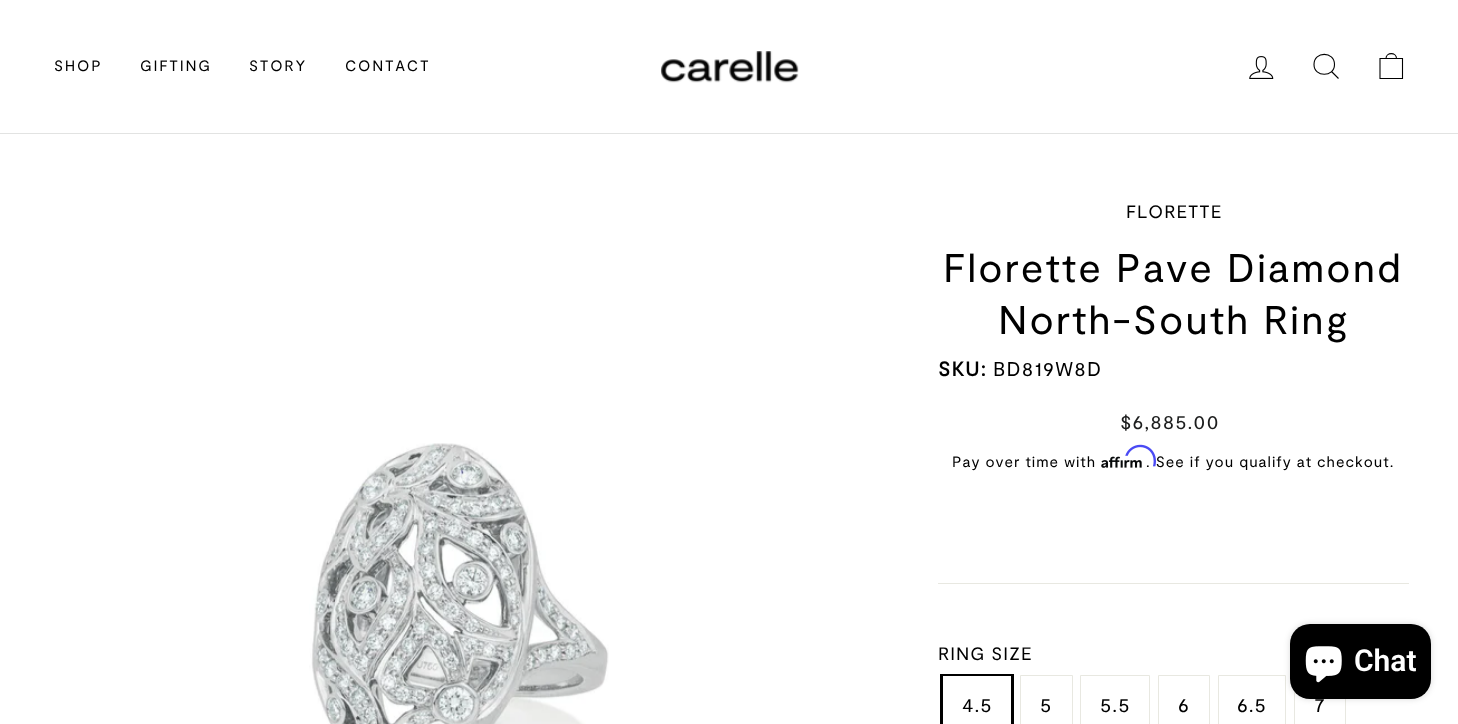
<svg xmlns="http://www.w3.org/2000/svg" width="1458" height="724">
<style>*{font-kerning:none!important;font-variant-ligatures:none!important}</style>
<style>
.a{font:15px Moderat;letter-spacing:1.75px;fill:#000}
.b{font:18px Moderat;letter-spacing:1px;fill:#000}
.c{font:40px Moderat;letter-spacing:2px;fill:#000}
.d{font:bold 20px Moderat;letter-spacing:1.25px;fill:#000}
.e{font:20px Moderat;letter-spacing:1.25px;fill:#000}
.f{font:20px Moderat;letter-spacing:1px;fill:#1c1d1d}
.g{font:15px Moderat;letter-spacing:1px;fill:#000}
.h{font:20px Moderat;letter-spacing:1px;fill:#000}
.i{font:600 30px Roboto;fill:#fff}
</style>
<rect width="100%" height="100%" fill="#fff"/>
<path fill="#e2e3e2" d="M0 133h1458v1H0z"/>
<image href="1.png" x="660" y="51" width="139" height="32"/>
<image href="2.png" x="1249" y="56" width="25" height="23"/>
<path fill="none" stroke="#000" stroke-width="1.1" d="M1334.5 64.5c0 13-20.5 13-20.5 0c0-13.5 20.5-13.5 20.5 0zm4 14l-7-7"/>
<path fill="none" stroke="#000" stroke-width="1.1" d="M1380 58.5h22.5v20h-22.5zm6 0c0-6.5 10.5-6.5 10.5 0"/>
<image href="3.png" x="309" y="443" width="300" height="281"/>
<image href="5.png" x="1101" y="456" width="41" height="12"/>
<path fill="#e8e8e1" d="M938 583h471v1H938z"/>
<path fill="none" stroke="#000" stroke-width="3" d="M941.5 675.5h71v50H941.5z"/>
<path fill="#fff" d="M943 676h68v1H943z"/>
<path fill="none" stroke="#e8e8e1" d="M1020.5 675.5h52v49H1020.5z"/>
<path fill="none" stroke="#e8e8e1" d="M1080.5 675.5h69v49H1080.5z"/>
<path fill="none" stroke="#e8e8e1" d="M1158.5 675.5h51v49H1158.5z"/>
<path fill="none" stroke="#e8e8e1" d="M1218.5 675.5h67v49H1218.5z"/>
<path fill="none" stroke="#e8e8e1" d="M1294.5 675.5h51v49H1294.5z"/>
<rect fill="#00000026" filter="blur(3px)" x="1290" y="624" width="141" height="75" rx="20"/>
<rect fill="#000" x="1290" y="624" width="141" height="75" rx="20"/>
<image href="6.png" x="1305" y="646" width="37" height="37"/>
<text class="a" x="54" y="71">SHOP</text>
<text class="a" x="140" y="71">GIFTING</text>
<text class="a" x="249" y="71">STORY</text>
<text class="a" x="345" y="71">CONTACT</text>
<text class="b" x="1126" y="218">FLORETTE</text>
<text class="c" x="943" y="282">Florette Pave Diamond</text>
<text class="c" x="998" y="334">North-South Ring</text>
<text class="d" x="938" y="376">SKU:</text>
<text class="e" x="993" y="376">BD819W8D</text>
<text class="f" x="1120" y="429">$6,885.00</text>
<text class="g" x="952" y="467">Pay over time with</text>
<text class="g" x="1146" y="467">. See if you qualify at checkout.</text>
<image href="4.png" x="1125" y="444" width="31" height="23"/>
<text class="b" x="938" y="660">RING SIZE</text>
<text class="h" x="962" y="712">4.5</text>
<text class="h" x="1040" y="712">5</text>
<text class="h" x="1100" y="712">5.5</text>
<text class="h" x="1178" y="712">6</text>
<text class="h" x="1237" y="712">6.5</text>
<text class="h" x="1314" y="712">7</text>
<text class="i" x="1354" y="671">Chat</text>
</svg>
